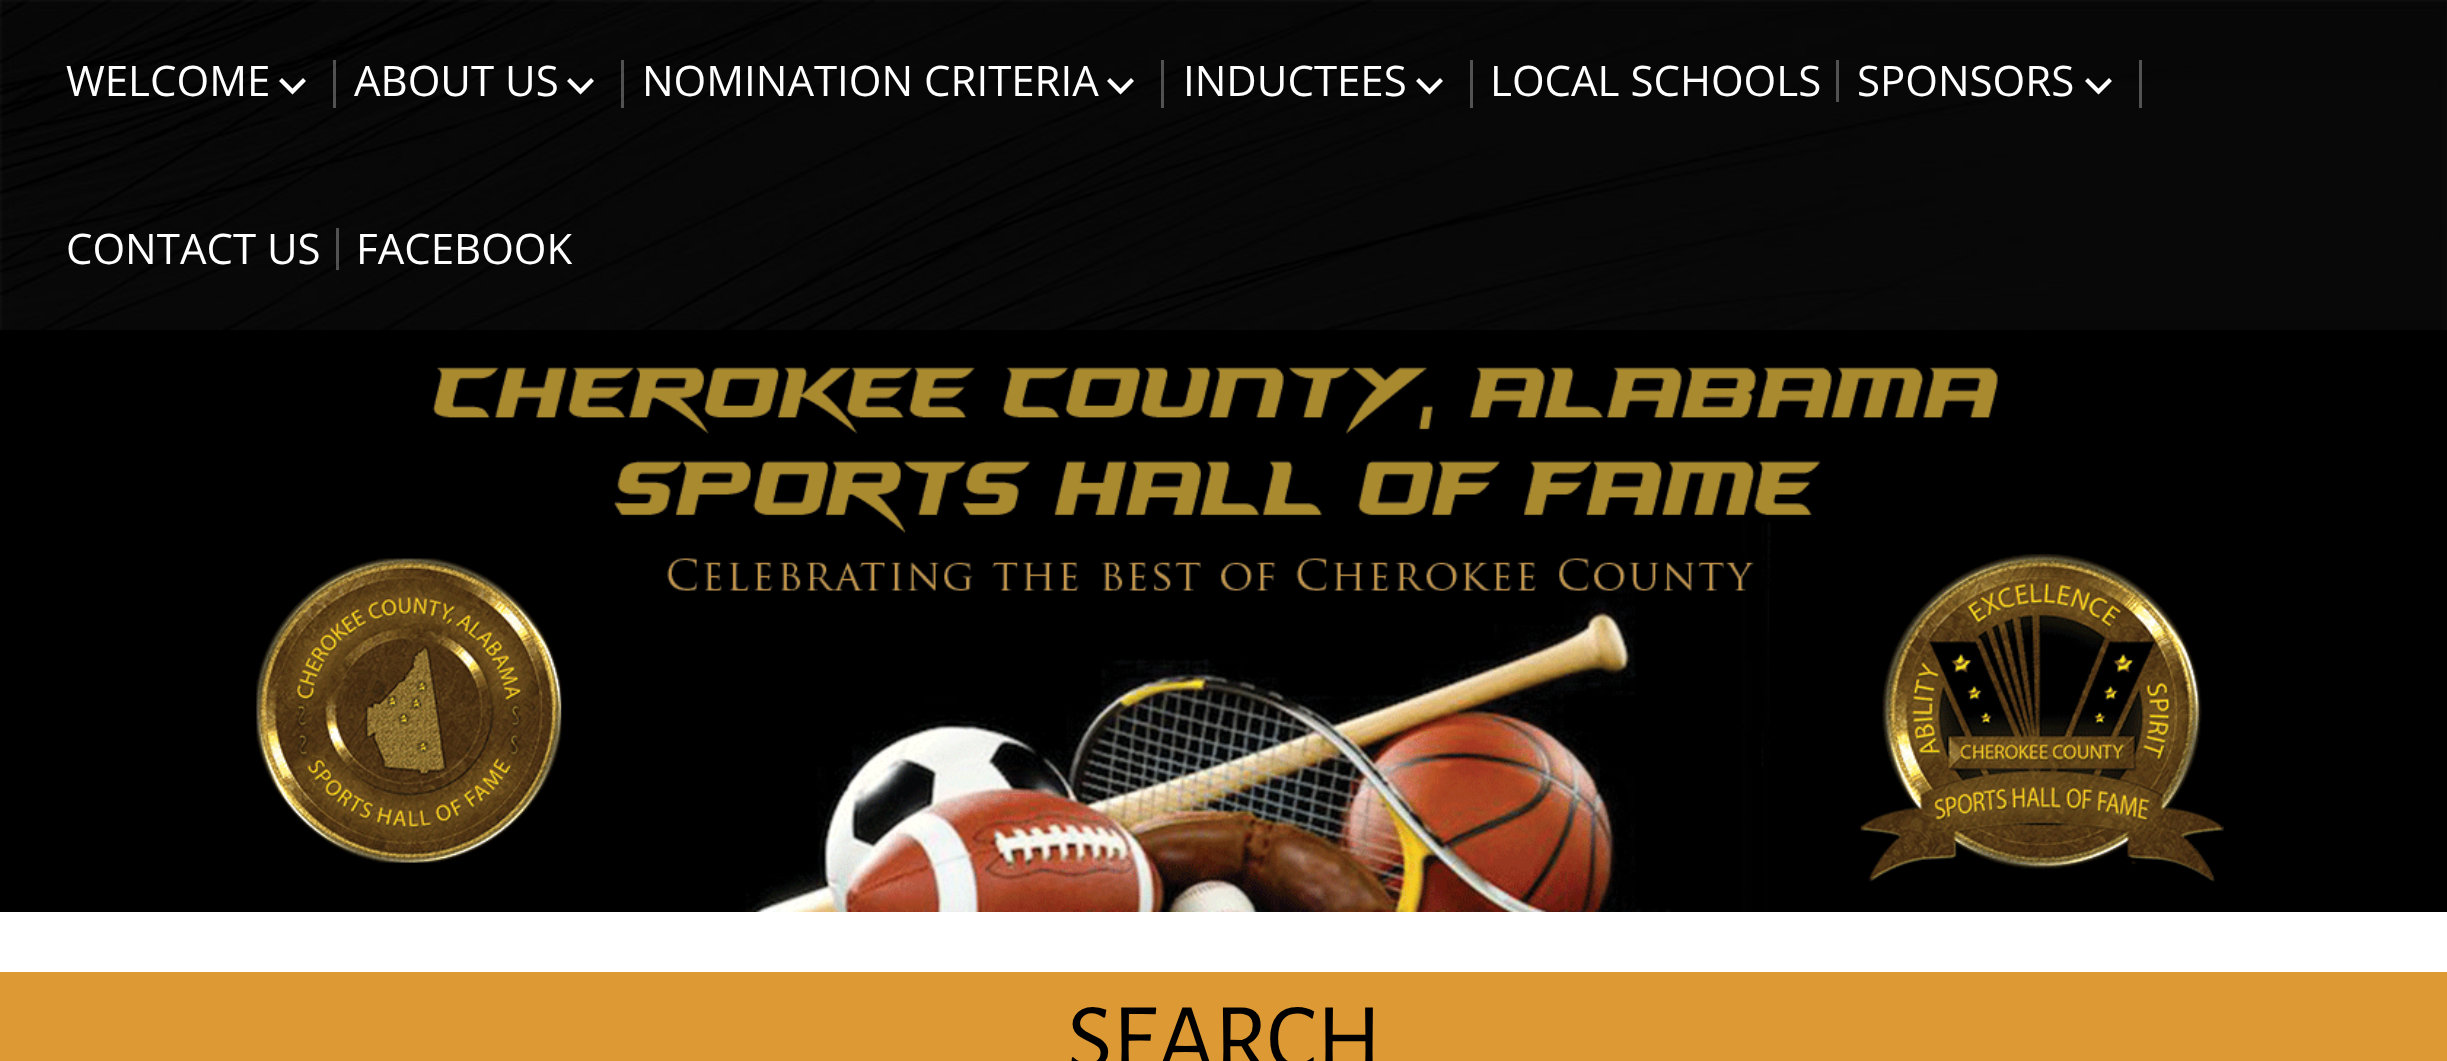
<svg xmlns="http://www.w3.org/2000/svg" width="2447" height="1061">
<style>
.a{font:42px Open Sans;fill:#fff}
.b{font:96px Alegreya Sans;fill:#000}
</style>
<rect width="100%" height="100%" fill="#fff"/>
<image href="1.png" x="0" y="0" width="2447" height="330"/>
<path fill="#00000080" d="M0 0h2447v330H0z"/>
<path fill="#fff" d="M303 78l3 3l-13.5 13.5l-13.5-13.5l3-3l10.5 10.5z"/>
<path fill="#ffffff4d" d="M333 60h3v48H333z"/>
<path fill="#fff" d="M591 78l3 3l-13.5 13.5l-13.5-13.5l3-3l10.5 10.5z"/>
<path fill="#ffffff4d" d="M621 60h3v48H621z"/>
<path fill="#fff" d="M1131 78l3 3l-13.5 13.5l-13.5-13.5l3-3l10.5 10.5z"/>
<path fill="#ffffff4d" d="M1161 60h3v48H1161z"/>
<path fill="#fff" d="M1440 78l3 3l-13.5 13.5l-13.5-13.5l3-3l10.5 10.5z"/>
<path fill="#525252" d="M1470 60h3v48H1470z"/>
<path fill="#525252" d="M1836 60h3v42H1836z"/>
<path fill="#fff" d="M2109 78l3 3l-13.5 13.5l-13.5-13.5l3-3l10.5 10.5z"/>
<path fill="#525252" d="M2139 60h3v48H2139z"/>
<path fill="#ffffff4d" d="M336 228h3v42H336z"/>
<image href="2.png" x="0" y="330" width="2447" height="582"/>
<path fill="#d93" d="M0 972h2447v89H0z"/>
<text class="a" x="66" y="96">WELCOME</text>
<text class="a" x="354" y="96">ABOUT US</text>
<text class="a" x="642" y="96">NOMINATION CRITERIA</text>
<text class="a" x="1183" y="96">INDUCTEES</text>
<text class="a" x="1490" y="96">LOCAL SCHOOLS</text>
<text class="a" x="1857" y="96">SPONSORS</text>
<text class="a" x="66" y="264">CONTACT US</text>
<text class="a" x="356" y="264">FACEBOOK</text>
<text class="b" x="1067" y="1069">SEARCH</text>
</svg>
